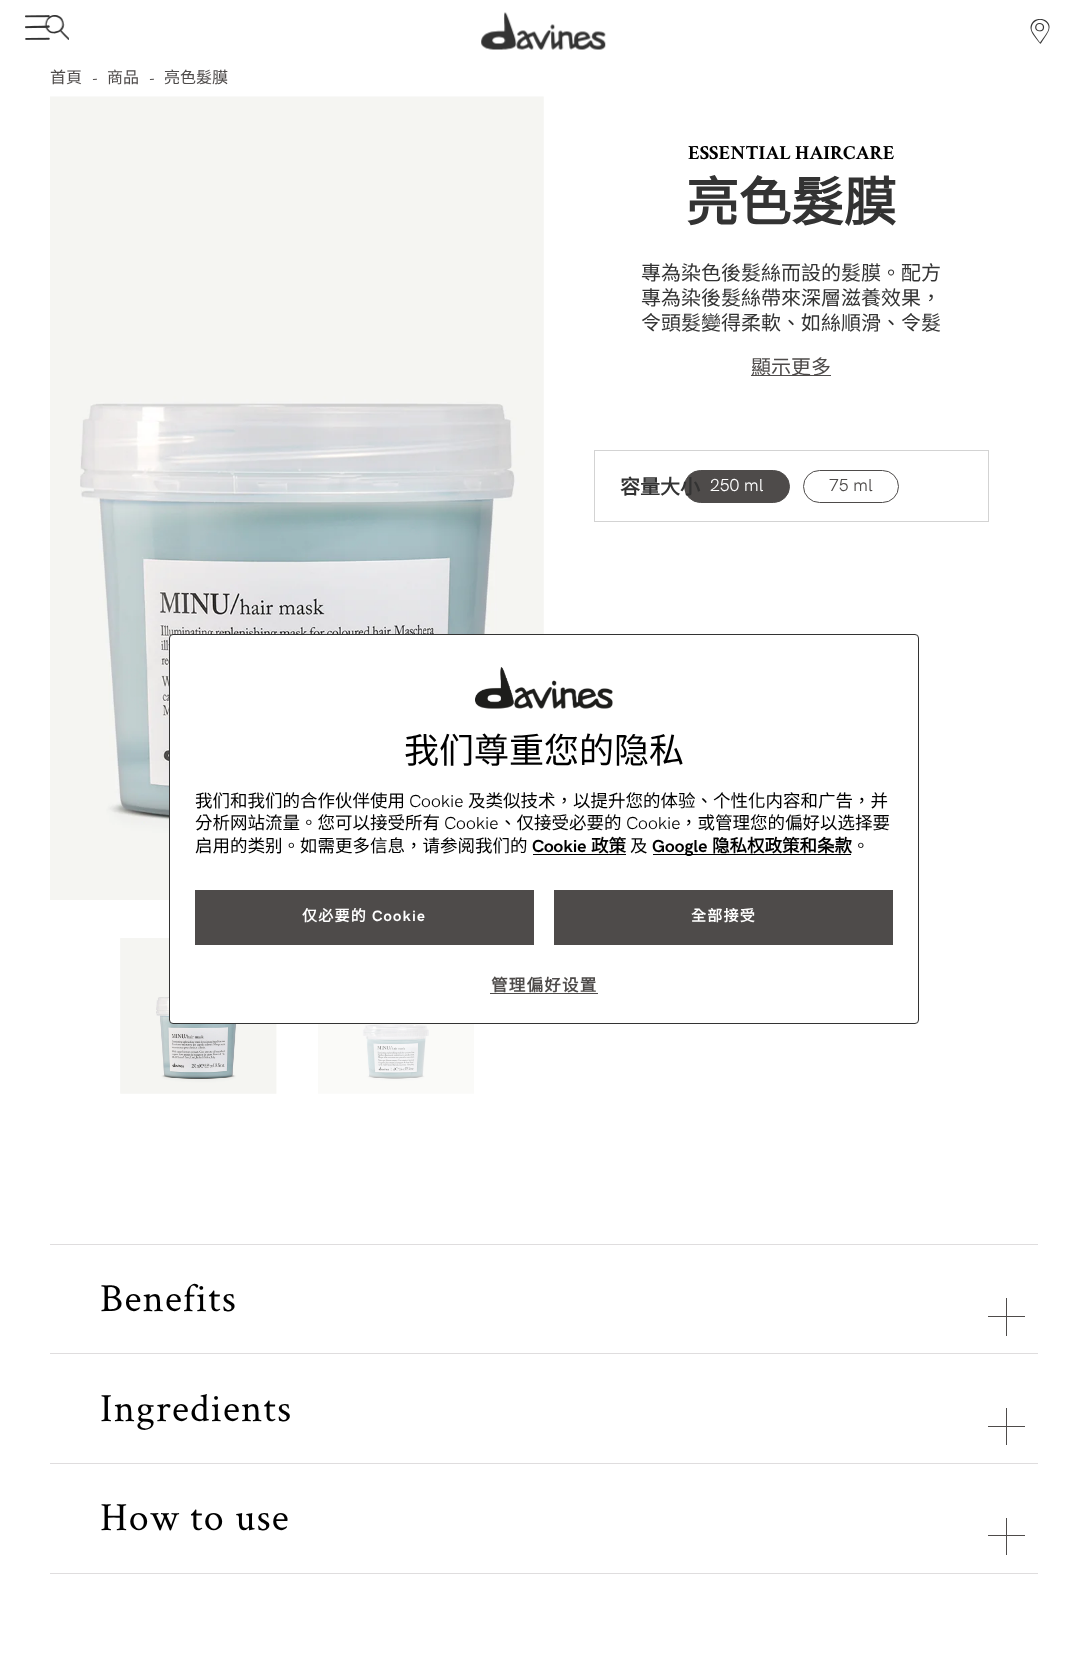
<svg xmlns="http://www.w3.org/2000/svg" width="1087" height="1656">
<style>
.a{font:16px Noto Sans CJK TC;fill:#4e4b4a}
.b{font:16px Crimson Text;fill:#4e4b4a}
.c{font:bold 20px Crimson Text;fill:#000}
.d{font:bold 52.5px Noto Sans CJK TC;fill:#333}
.e{font:20px Noto Sans CJK TC;fill:#333}
.f{font:20px Noto Sans CJK TC;fill:#4e4b4a}
.g{font:bold 20px Noto Sans CJK TC;fill:#333}
.h{font:17.5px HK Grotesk;fill:#fff}
.i{font:17.5px HK Grotesk;fill:#4e4b4a}
.j{font:35px Noto Sans CJK TC;fill:#000}
.k{font:17.5px Noto Sans CJK TC;fill:#000}
.l{font:17.5px HK Grotesk;fill:#000}
.m{font:bold 17.5px HK Grotesk;fill:#000}
.n{font:bold 17.5px Noto Sans CJK TC;fill:#000}
.o{font:bold 15px Noto Sans CJK TC;letter-spacing:1.25px;fill:#fff}
.p{font:bold 15px HK Grotesk;letter-spacing:1.25px;fill:#fff}
.q{font:bold 16.5px Noto Sans CJK TC;letter-spacing:1.25px;fill:#4e4b4a}
.r{font:40px Crimson Text;letter-spacing:1.25px;fill:#000}
</style>
<rect width="100%" height="100%" fill="#fff"/>
<image href="1.png" x="25" y="15" width="25" height="25"/>
<image href="2.png" x="44" y="15" width="25" height="25"/>
<image href="3.png" x="481" y="12" width="125" height="38"/>
<image href="4.png" x="1030" y="19" width="20" height="25"/>
<image href="5.png" x="50" y="96" width="494" height="804"/>
<image href="6.png" x="120" y="938" width="157" height="156"/>
<image href="7.png" x="318" y="1024" width="156" height="70"/>
<path fill="#4e4b4a" d="M751 375h80v1H751z"/>
<path fill="#d3d3d3" d="M594 450h395v1H594z"/>
<path fill="#d3d3d3" d="M988 450h1v71H988z"/>
<path fill="#d3d3d3" d="M594 450h1v71H594z"/>
<rect fill="#4e4b4a" stroke="#4e4b4a" x="684.5" y="470.5" width="105" height="32" rx="16"/>
<rect fill="none" stroke="#4e4b4a" x="803.5" y="470.5" width="95" height="32" rx="16"/>
<path fill="#d3d3d3" d="M594 521h395v1H594z"/>
<rect fill="#fff" stroke="#333" x="169.5" y="634.5" width="749" height="389" rx="3.5"/>
<image href="8.png" x="475" y="667" width="138" height="42"/>
<path fill="#000" d="M533 854h93v1H533z"/>
<path fill="#000" d="M653 854h198v1H653z"/>
<path fill="#4e4b4a" d="M195 890h339v55H195z"/>
<path fill="#4e4b4a" d="M554 890h339v55H554z"/>
<path fill="#4e4b4a" d="M490 993h108v1H490z"/>
<path fill="#dfddde" d="M50 1244h988v1H50z"/>
<path fill="#dfddde" d="M50 1353h988v1H50z"/>
<path fill="#4e4b4a" d="M988 1316h37v1H988z"/>
<path fill="#4e4b4a" d="M1006 1298h1v38H1006z"/>
<path fill="#dfddde" d="M50 1463h988v1H50z"/>
<path fill="#4e4b4a" d="M988 1426h37v1H988z"/>
<path fill="#4e4b4a" d="M1006 1408h1v37H1006z"/>
<path fill="#dfddde" d="M50 1573h988v1H50z"/>
<path fill="#4e4b4a" d="M988 1535h37v1H988z"/>
<path fill="#4e4b4a" d="M1006 1518h1v37H1006z"/>
<text class="a" x="50" y="83">首頁</text>
<text class="b" x="92" y="83">-</text>
<text class="a" x="107" y="83">商品</text>
<text class="b" x="149" y="83">-</text>
<text class="a" x="164" y="83">亮色髮膜</text>
<text class="c" x="688" y="159">ESSENTIAL HAIRCARE</text>
<text class="d" x="686" y="221">亮色髮膜</text>
<text class="e" x="641" y="280">專為染色後髮絲而設的髮膜。配方</text>
<text class="e" x="641" y="305">專為染後髮絲帶來深層滋養效果，</text>
<text class="e" x="641" y="330">令頭髮變得柔軟、如絲順滑、令髮</text>
<text class="f" x="751" y="374">顯示更多</text>
<text class="g" x="620" y="494">容量大小</text>
<text class="h" x="710" y="491">250 ml</text>
<text class="i" x="829" y="491">75 ml</text>
<text class="j" x="404" y="763">我们尊重您的隐私</text>
<text class="k" x="195" y="807">我们和我们的合作伙伴使用</text>
<text class="l" x="409" y="807">Cookie</text>
<text class="k" x="468" y="807">及类似技术，以提升您的体验、个性化内容和广告，并</text>
<text class="k" x="195" y="829">分析网站流量。您可以接受所有</text>
<text class="l" x="444" y="829">Cookie</text>
<text class="k" x="499" y="829">、仅接受必要的</text>
<text class="l" x="626" y="829">Cookie</text>
<text class="k" x="680" y="829">，或管理您的偏好以选择要</text>
<text class="k" x="195" y="852">启用的类别。如需更多信息，请参阅我们的</text>
<text class="m" x="532" y="852">Cookie</text>
<text class="n" x="591" y="852">政策</text>
<text class="k" x="630" y="852">及</text>
<text class="m" x="652" y="852">Google</text>
<text class="n" x="712" y="852">隐私权政策和条款</text>
<text class="k" x="852" y="852">。</text>
<text class="o" x="302" y="921">仅必要的</text>
<text class="p" x="372" y="921">Cookie</text>
<text class="o" x="691" y="921">全部接受</text>
<text class="q" x="491" y="991">管理偏好设置</text>
<text class="r" x="100" y="1311">Benefits</text>
<text class="r" x="100" y="1421">Ingredients</text>
<text class="r" x="100" y="1530">How to use</text>
</svg>
